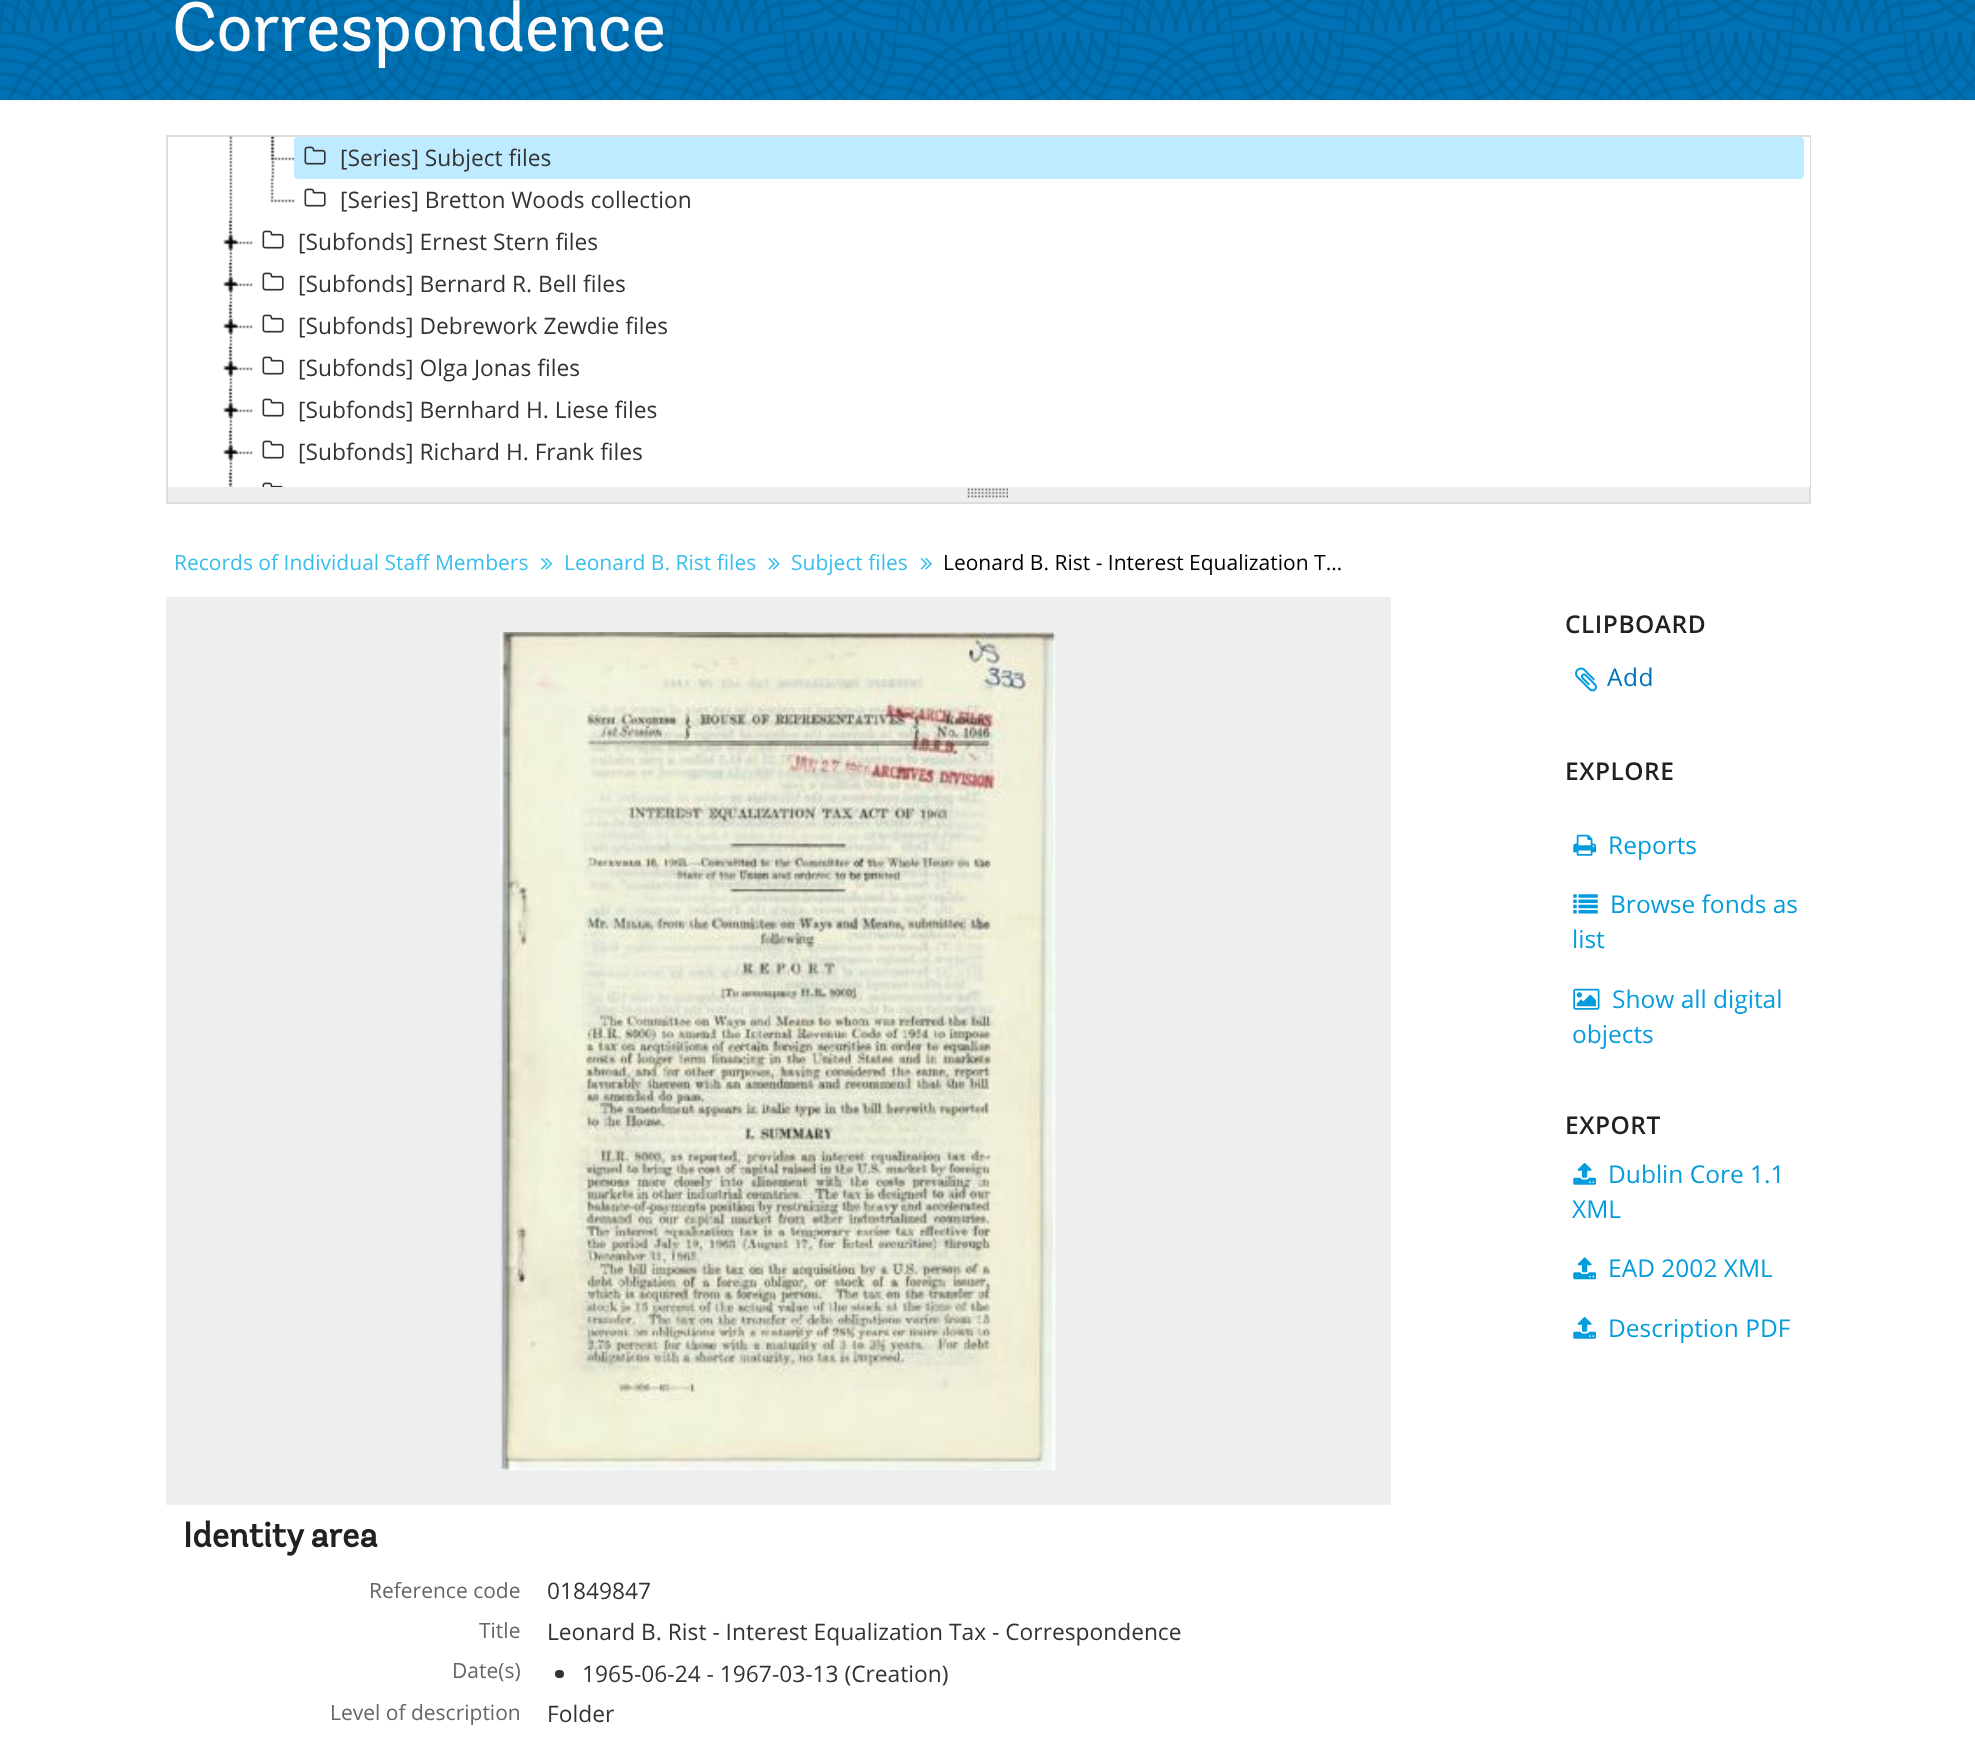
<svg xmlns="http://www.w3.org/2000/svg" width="1975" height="1755">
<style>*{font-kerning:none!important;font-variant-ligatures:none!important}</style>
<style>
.a{font:70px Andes;letter-spacing:-0.5px;fill:#fcfcfc}
.b{font:22.75px Open Sans;fill:#333}
.c{font:21px Open Sans;fill:#39beea}
.d{font:21px Open Sans;fill:#000}
.e{font:600 24.5px Open Sans;letter-spacing:0.5px;fill:#212121}
.f{font:24.5px 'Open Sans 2';letter-spacing:0.5px;fill:#0071bc}
.g{font:24.5px Open Sans;fill:#049cdb}
.h{font:bold 35px Andes;fill:#212121}
.i{font:21px 'Open Sans 2';fill:#666}
</style>
<rect width="100%" height="100%" fill="#fff"/>
<image href="1.png" x="0" y="0" width="1975" height="100"/>
<path fill="none" stroke="#ddd" stroke-width="2" d="M167 136h1643v351H167z"/>
<path fill="#eee" d="M168 487h1641v15H168z"/>
<image href="18.png" x="967" y="488" width="41" height="10"/>
<path fill="none" stroke="#ddd" stroke-width="2" d="M167 486h1643v17H167z"/>
<path fill="#fff" d="M168 137h1642v350H168z"/>
<image href="2.png" x="229" y="136" width="4" height="85"/>
<image href="3.png" x="271" y="136" width="4" height="43"/>
<image href="4.png" x="270" y="136" width="24" height="25"/>
<image href="6.png" x="270" y="178" width="25" height="25"/>
<rect fill="#beebff" x="294" y="137" width="1510" height="42" rx="4"/>
<image href="5.png" x="304" y="146" width="22" height="19"/>
<image href="7.png" x="304" y="188" width="22" height="19"/>
<image href="8.png" x="229" y="220" width="4" height="43"/>
<image href="9.png" x="223" y="220" width="30" height="31"/>
<image href="7.png" x="262" y="230" width="22" height="19"/>
<image href="10.png" x="229" y="262" width="4" height="43"/>
<image href="11.png" x="223" y="262" width="30" height="31"/>
<image href="7.png" x="262" y="272" width="22" height="19"/>
<image href="12.png" x="229" y="304" width="4" height="43"/>
<image href="13.png" x="223" y="304" width="30" height="31"/>
<image href="7.png" x="262" y="314" width="22" height="19"/>
<image href="12.png" x="229" y="346" width="4" height="43"/>
<image href="13.png" x="223" y="346" width="30" height="31"/>
<image href="7.png" x="262" y="356" width="22" height="19"/>
<image href="12.png" x="229" y="388" width="4" height="43"/>
<image href="13.png" x="223" y="388" width="30" height="31"/>
<image href="7.png" x="262" y="398" width="22" height="19"/>
<image href="12.png" x="229" y="430" width="4" height="43"/>
<image href="13.png" x="223" y="430" width="30" height="31"/>
<image href="14.png" x="262" y="440" width="22" height="19"/>
<image href="15.png" x="229" y="472" width="4" height="15"/>
<image href="16.png" x="228" y="472" width="5" height="15"/>
<image href="17.png" x="262" y="482" width="21" height="5"/>
<image href="19.png" x="540" y="558" width="13" height="12"/>
<image href="20.png" x="768" y="558" width="12" height="12"/>
<image href="21.png" x="920" y="558" width="12" height="12"/>
<image href="22.png" x="1575" y="667" width="22" height="25"/>
<image href="23.png" x="1573" y="834" width="23" height="22"/>
<image href="24.png" x="1573" y="894" width="25" height="20"/>
<image href="25.png" x="1573" y="988" width="27" height="22"/>
<image href="26.png" x="1573" y="1162" width="23" height="23"/>
<image href="27.png" x="1573" y="1257" width="23" height="23"/>
<image href="26.png" x="1573" y="1316" width="23" height="23"/>
<path fill="#eee" d="M166 597h1225v908H166z"/>
<image href="28.png" x="500" y="632" width="556" height="839"/>
<rect fill="#333" x="555" y="1670" width="9" height="8" rx="4"/>
<text class="a" x="172" y="51">Correspondence</text>
<text class="b" x="340" y="166">[Series] Subject files</text>
<text class="b" x="340" y="208">[Series] Bretton Woods collection</text>
<text class="b" x="298" y="250">[Subfonds] Ernest Stern files</text>
<text class="b" x="298" y="292">[Subfonds] Bernard R. Bell files</text>
<text class="b" x="298" y="334">[Subfonds] Debrework Zewdie files</text>
<text class="b" x="298" y="376">[Subfonds] Olga Jonas files</text>
<text class="b" x="298" y="418">[Subfonds] Bernhard H. Liese files</text>
<text class="b" x="298" y="460">[Subfonds] Richard H. Frank files</text>
<text class="c" x="174" y="570">Records of Individual Staff Members</text>
<text class="c" x="564" y="570">Leonard B. Rist files</text>
<text class="c" x="791" y="570">Subject files</text>
<text class="d" x="943" y="570">Leonard B. Rist - Interest Equalization T…</text>
<text class="e" x="1565" y="633">CLIPBOARD</text>
<text class="f" x="1607" y="686">Add</text>
<text class="e" x="1565" y="780">EXPLORE</text>
<text class="g" x="1608" y="854">Reports</text>
<text class="g" x="1610" y="913">Browse fonds as</text>
<text class="g" x="1572" y="948">list</text>
<text class="g" x="1612" y="1008">Show all digital</text>
<text class="g" x="1572" y="1043">objects</text>
<text class="e" x="1565" y="1134">EXPORT</text>
<text class="g" x="1608" y="1183">Dublin Core 1.1</text>
<text class="g" x="1572" y="1218">XML</text>
<text class="g" x="1608" y="1277">EAD 2002 XML</text>
<text class="g" x="1608" y="1337">Description PDF</text>
<text class="h" x="183" y="1547" word-spacing="-2">Identity area</text>
<text class="i" x="369" y="1598">Reference code</text>
<text class="b" x="547" y="1599">01849847</text>
<text class="i" x="479" y="1638">Title</text>
<text class="b" x="547" y="1640">Leonard B. Rist - Interest Equalization Tax - Correspondence</text>
<text class="i" x="452" y="1678">Date(s)</text>
<text class="b" x="582" y="1682">1965-06-24 - 1967-03-13 (Creation)</text>
<text class="i" x="330" y="1720">Level of description</text>
<text class="b" x="547" y="1722">Folder</text>
</svg>
